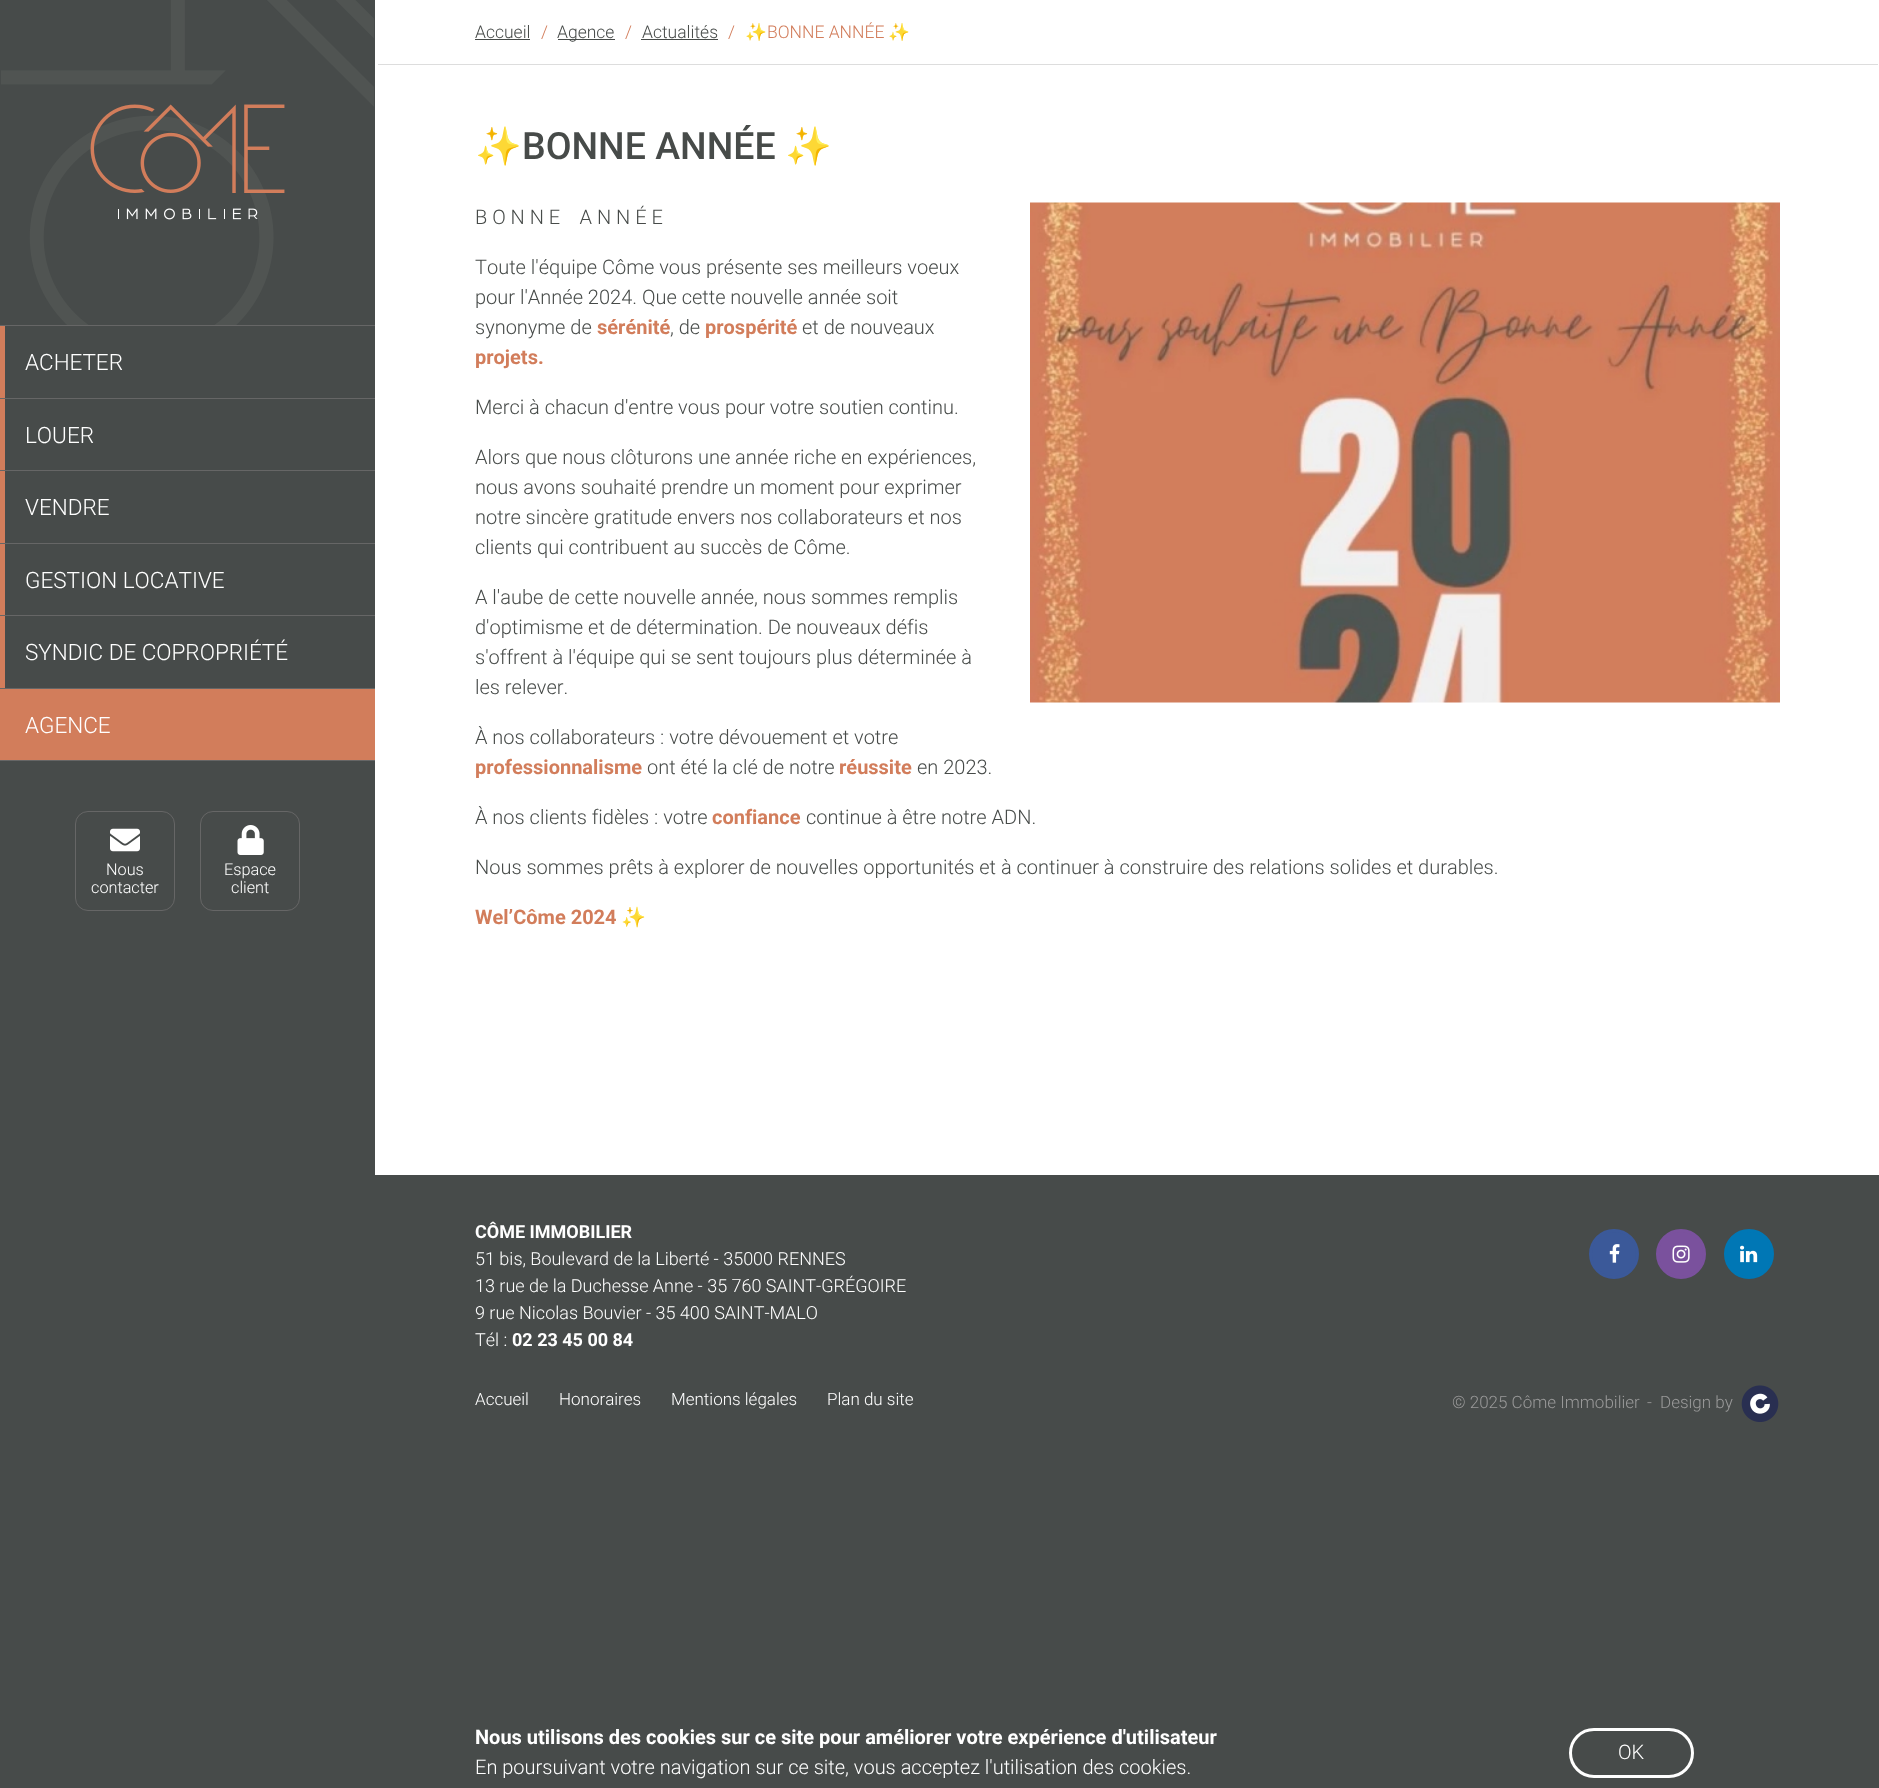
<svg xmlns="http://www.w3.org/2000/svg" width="1879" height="1788">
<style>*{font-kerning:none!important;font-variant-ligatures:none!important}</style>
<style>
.a{font:300 22.5px Roboto;fill:#fff}
.b{font:300 16.25px Roboto;fill:#fff}
.c{font:300 17.5px Roboto;fill:#474b49}
.d{font:300 17.5px Roboto;fill:#d27d5b}
.e{font:17.5px Noto Color Emoji;fill:#d27d5b}
.f{font:37.5px Noto Color Emoji;fill:#474b49}
.g{font:500 37.5px Roboto;fill:#474b49}
.h{font:300 20px Roboto;fill:#474b49}
.i{font:bold 20px Roboto;fill:#d27d5b}
.j{font:20px Noto Color Emoji;fill:#474b49}
.k{font:bold 18px Roboto;fill:#fff}
.l{font:300 18px Roboto;fill:#fff}
.m{font:300 17px Roboto;fill:#fff}
.n{font:300 17px Roboto;fill:#999}
.o{font:bold 20px Roboto;fill:#fff}
.p{font:300 20px Roboto;fill:#fff}
</style>
<rect width="100%" height="100%" fill="#474b4a"/>
<image href="1.png" x="1" y="0" width="373" height="325"/>
<image href="2.png" x="90" y="104" width="195" height="116"/>
<path fill="#666" d="M0 325h375v1H0z"/>
<path fill="#666" d="M0 398h375v1H0z"/>
<path fill="#d27d5b" d="M0 326h5v72H0z"/>
<path fill="#666" d="M0 470h375v1H0z"/>
<path fill="#d27d5b" d="M0 399h5v71H0z"/>
<path fill="#666" d="M0 543h375v1H0z"/>
<path fill="#d27d5b" d="M0 471h5v72H0z"/>
<path fill="#666" d="M0 615h375v1H0z"/>
<path fill="#d27d5b" d="M0 544h5v71H0z"/>
<path fill="#666" d="M0 688h375v1H0z"/>
<path fill="#d27d5b" d="M0 616h5v72H0z"/>
<path fill="#666" d="M0 760h375v1H0z"/>
<path fill="#d27d5b" d="M0 689h375v71H0z"/>
<rect fill="none" stroke="#666" x="75.5" y="811.5" width="99" height="99" rx="12.5"/>
<image href="3.png" x="110" y="828" width="30" height="24"/>
<rect fill="none" stroke="#666" x="200.5" y="811.5" width="99" height="99" rx="12.5"/>
<image href="4.png" x="237" y="825" width="27" height="30"/>
<path fill="#fff" d="M375 0h1504v1175H375z"/>
<path fill="#ddd" d="M378 64h1500v1H378z"/>
<path fill="#474b49" d="M475 39h55v1H475z"/>
<path fill="#474b49" d="M558 39h57v1H558z"/>
<path fill="#474b49" d="M641 39h77v1H641z"/>
<image href="5.png" x="1030" y="202" width="750" height="501"/>
<circle fill="#3b5999" stroke="#3b5999" stroke-width="3" cx="1614" cy="1254" r="23.5"/>
<image href="6.png" x="1609" y="1244" width="11" height="19"/>
<circle fill="#7a519d" stroke="#7a519d" stroke-width="3" cx="1681" cy="1254" r="23.5"/>
<image href="7.png" x="1672" y="1245" width="18" height="18"/>
<circle fill="#0077b5" stroke="#0077b5" stroke-width="3" cx="1749" cy="1254" r="23.5"/>
<image href="8.png" x="1740" y="1245" width="18" height="18"/>
<image href="9.png" x="1741" y="1385" width="38" height="37"/>
<rect fill="none" stroke="#fff" stroke-width="3" x="1570.5" y="1729.5" width="122" height="47" rx="23.5"/>
<text class="a" x="25" y="370">ACHETER</text>
<text class="a" x="25" y="443">LOUER</text>
<text class="a" x="25" y="515">VENDRE</text>
<text class="a" x="25" y="588">GESTION LOCATIVE</text>
<text class="a" x="25" y="660">SYNDIC DE COPROPRIÉTÉ</text>
<text class="a" x="25" y="733">AGENCE</text>
<text class="b" x="106" y="875">Nous</text>
<text class="b" x="91" y="893">contacter</text>
<text class="b" x="224" y="875">Espace</text>
<text class="b" x="231" y="893">client</text>
<text class="c" x="475" y="38">Accueil</text>
<text class="d" x="541" y="38">/</text>
<text class="c" x="557" y="38">Agence</text>
<text class="d" x="625" y="38">/</text>
<text class="c" x="642" y="38">Actualités</text>
<text class="d" x="728" y="38">/</text>
<text class="e" x="745" y="38">✨</text>
<text class="d" x="767" y="38">BONNE ANNÉE</text>
<text class="e" x="888" y="38">✨</text>
<text class="f" x="475" y="159">✨</text>
<text class="g" x="522" y="159">BONNE ANNÉE</text>
<text class="f" x="785" y="159">✨</text>
<text class="h" xml:space="preserve" x="475" y="224">B O N N E    A N N É E</text>
<text class="h" x="475" y="274">Toute l'équipe Côme vous présente ses meilleurs voeux</text>
<text class="h" x="475" y="304">pour l'Année 2024. Que cette nouvelle année soit</text>
<text class="h" x="475" y="334">synonyme de</text>
<text class="i" x="597" y="334">sérénité</text>
<text class="h" x="670" y="334">, de</text>
<text class="i" x="705" y="334">prospérité</text>
<text class="h" x="802" y="334">et de nouveaux</text>
<text class="i" x="475" y="364">projets.</text>
<text class="h" x="475" y="414">Merci à chacun d'entre vous pour votre soutien continu.</text>
<text class="h" x="475" y="464">Alors que nous clôturons une année riche en expériences,</text>
<text class="h" x="475" y="494">nous avons souhaité prendre un moment pour exprimer</text>
<text class="h" x="475" y="524">notre sincère gratitude envers nos collaborateurs et nos</text>
<text class="h" x="475" y="554">clients qui contribuent au succès de Côme.</text>
<text class="h" x="475" y="604">A l'aube de cette nouvelle année, nous sommes remplis</text>
<text class="h" x="475" y="634">d'optimisme et de détermination. De nouveaux défis</text>
<text class="h" x="475" y="664">s'offrent à l'équipe qui se sent toujours plus déterminée à</text>
<text class="h" x="475" y="694">les relever.</text>
<text class="h" x="475" y="744">À nos collaborateurs : votre dévouement et votre</text>
<text class="i" x="475" y="774">professionnalisme</text>
<text class="h" x="647" y="774">ont été la clé de notre</text>
<text class="i" x="839" y="774">réussite</text>
<text class="h" x="917" y="774">en 2023.</text>
<text class="h" x="475" y="824">À nos clients fidèles : votre</text>
<text class="i" x="712" y="824">confiance</text>
<text class="h" x="806" y="824">continue à être notre ADN.</text>
<text class="h" x="475" y="874">Nous sommes prêts à explorer de nouvelles opportunités et à continuer à construire des relations solides et durables.</text>
<text class="i" x="475" y="924">Wel’Côme 2024</text>
<text class="j" x="621" y="924">✨</text>
<text class="k" x="475" y="1238">CÔME IMMOBILIER</text>
<text class="l" x="475" y="1265">51 bis, Boulevard de la Liberté - 35000 RENNES</text>
<text class="l" x="475" y="1292">13 rue de la Duchesse Anne - 35 760 SAINT-GRÉGOIRE</text>
<text class="l" x="475" y="1319">9 rue Nicolas Bouvier - 35 400 SAINT-MALO</text>
<text class="l" x="475" y="1346">Tél :</text>
<text class="k" x="512" y="1346">02 23 45 00 84</text>
<text class="m" x="475" y="1405">Accueil</text>
<text class="m" x="559" y="1405">Honoraires</text>
<text class="m" x="671" y="1405">Mentions légales</text>
<text class="m" x="827" y="1405">Plan du site</text>
<text class="n" x="1452" y="1408">© 2025 Côme Immobilier</text>
<text class="n" x="1647" y="1408">-</text>
<text class="n" x="1660" y="1408">Design by</text>
<text class="o" x="475" y="1744">Nous utilisons des cookies sur ce site pour améliorer votre expérience d'utilisateur</text>
<text class="p" x="475" y="1774">En poursuivant votre navigation sur ce site, vous acceptez l'utilisation des cookies.</text>
<text class="p" x="1618" y="1759">OK</text>
</svg>
